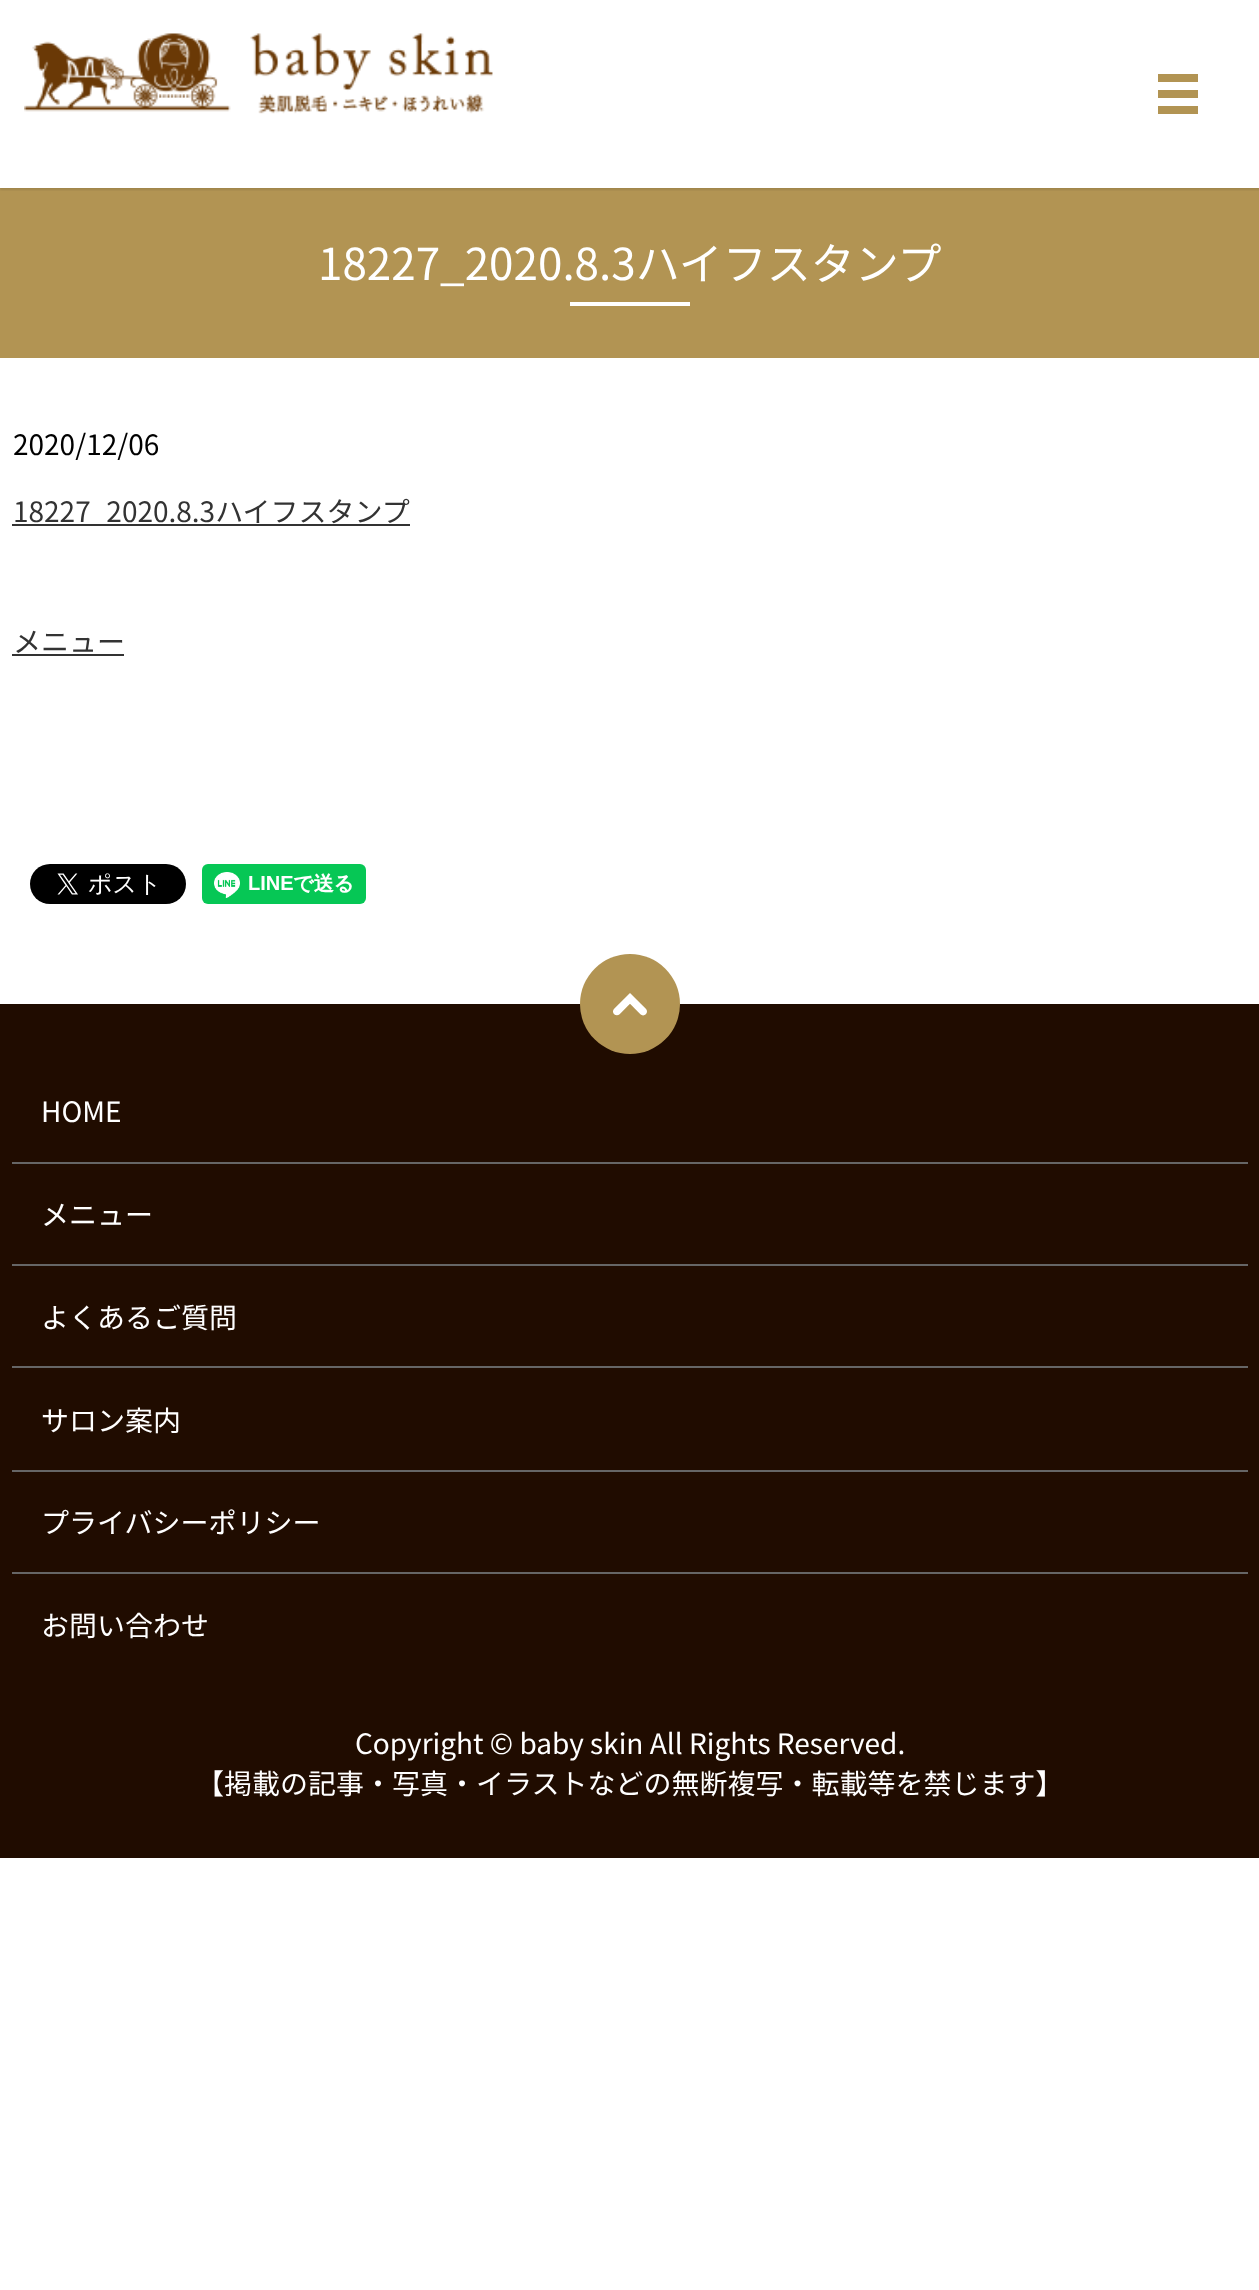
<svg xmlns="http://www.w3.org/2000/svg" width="1259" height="2290">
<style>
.a{font:44px Noto Sans JP;fill:#fff}
.b{font:28px Noto Sans JP;fill:#000}
.c{font:28px Noto Sans JP;fill:#333}
.d{font:28px Noto Sans JP;fill:#fff}
</style>
<defs>
<clipPath id="clip1"><path d="M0 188h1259v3H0z"/></clipPath>
</defs>
<rect width="100%" height="100%" fill="#fff"/>
<path fill="#b29453" d="M0 188h1259v170H0z"/>
<g clip-path="url(#clip1)">
<path fill="#0000001a" filter="blur(1px)" d="M0 2h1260v188H0z"/>
</g>
<image href="1.png" x="24" y="33" width="469" height="81"/>
<path fill="#b29453" d="M1158 74h40v40H1158z"/>
<path fill="#fff" d="M1158 82h40v8H1158z"/>
<path fill="#fff" d="M1158 98h40v8H1158z"/>
<path fill="#fff" d="M570 302h120v4H570z"/>
<path fill="#333" d="M12 524h398v2H12z"/>
<path fill="#333" d="M12 654h112v2H12z"/>
<image href="2.png" x="30" y="864" width="156" height="40"/>
<image href="3.png" x="202" y="864" width="164" height="40"/>
<path fill="#200c00" d="M0 1004h1259v854H0z"/>
<circle fill="#b29453" cx="630" cy="1004" r="50"/>
<image href="4.png" x="613" y="993" width="34" height="23"/>
<path fill="#666" d="M12 1162h1236v2H12z"/>
<path fill="#666" d="M12 1264h1236v2H12z"/>
<path fill="#666" d="M12 1366h1236v2H12z"/>
<path fill="#666" d="M12 1470h1236v2H12z"/>
<path fill="#666" d="M12 1572h1236v2H12z"/>
<text class="a" x="318" y="280">18227_2020.8.3ハイフスタンプ</text>
<text class="b" x="13" y="455">2020/12/06</text>
<text class="c" x="13" y="522">18227_2020.8.3ハイフスタンプ</text>
<text class="c" x="13" y="652">メニュー</text>
<text class="d" x="41" y="1122">HOME</text>
<text class="d" x="41" y="1225">メニュー</text>
<text class="d" x="41" y="1328">よくあるご質問</text>
<text class="d" x="41" y="1431">サロン案内</text>
<text class="d" x="41" y="1533">プライバシーポリシー</text>
<text class="d" x="41" y="1636">お問い合わせ</text>
<text class="d" x="355" y="1754">Copyright © baby skin All Rights Reserved.</text>
<text class="d" x="196" y="1794">【掲載の記事・写真・イラストなどの無断複写・転載等を禁じます】</text>
</svg>
